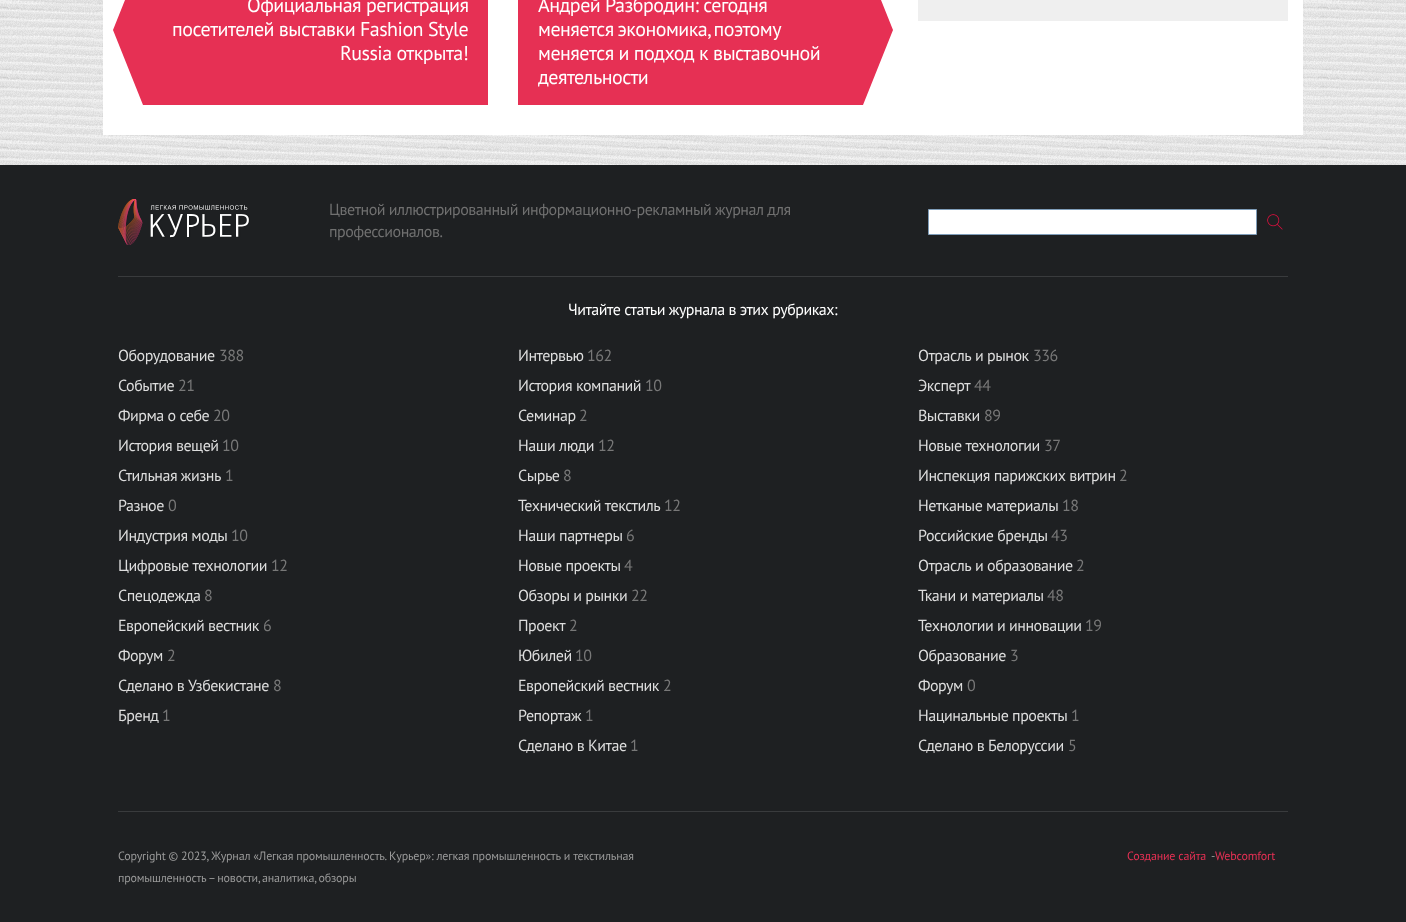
<svg xmlns="http://www.w3.org/2000/svg" width="1406" height="922">
<style>
.a{font:20px PT Sans;letter-spacing:-0.5px;fill:#fff}
.b{font:16px PT Sans;letter-spacing:-0.48px;fill:#707070}
.c{font:16px PT Sans;letter-spacing:-0.48px;fill:#fff}
.d{font:16px PT Sans;letter-spacing:-0.48px;fill:#ddd}
.e{font:16px PT Sans;letter-spacing:-0.48px;fill:#787878}
.f{font:12px PT Sans;letter-spacing:-0.18px;fill:#999}
.g{font:12px PT Sans;letter-spacing:-0.18px;fill:#e63054}
</style>
<rect width="100%" height="100%" fill="#fff"/>
<image href="1.png" x="0" y="0" width="1406" height="165"/>
<path fill="#fff" d="M103 0h1200v135H103z"/>
<path fill="#e63054" d="M143 0h345v105H143z"/>
<path fill="#e63054" d="M143-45v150l-30-75z"/>
<path fill="#e63054" d="M518 0h345v105H518z"/>
<path fill="#e63054" d="M863 105v-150l30 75z"/>
<path fill="#efefef" d="M918 0h370v21H918z"/>
<path fill="#1e2022" d="M0 165h1406v757H0z"/>
<path fill="#393b3d" d="M118 276h1170v1H118z"/>
<image href="2.png" x="118" y="199" width="132" height="46"/>
<path fill="#fff" stroke="#7f9db9" d="M928.5 209.5h328v25H928.5z"/>
<image href="3.png" x="1267" y="214" width="16" height="16"/>
<path fill="#393b3d" d="M118 811h1170v1H118z"/>
<text class="a" x="247" y="12">Официальная регистрация</text>
<text class="a" x="172" y="36">посетителей выставки Fashion Style</text>
<text class="a" x="340" y="60">Russia открыта!</text>
<text class="a" x="538" y="12">Андрей Разбродин: сегодня</text>
<text class="a" x="538" y="36" word-spacing="-1">меняется экономика, поэтому</text>
<text class="a" x="538" y="60">меняется и подход к выставочной</text>
<text class="a" x="538" y="84">деятельности</text>
<text class="b" x="329" y="215">Цветной иллюстрированный информационно-рекламный журнал для</text>
<text class="b" x="329" y="237">профессионалов.</text>
<text class="c" x="568" y="315">Читайте статьи журнала в этих рубриках:</text>
<text class="d" x="118" y="361">Оборудование</text>
<text class="e" x="219" y="361">388</text>
<text class="d" x="118" y="391">Событие</text>
<text class="e" x="178" y="391">21</text>
<text class="d" x="118" y="421">Фирма о себе</text>
<text class="e" x="213" y="421">20</text>
<text class="d" x="118" y="451">История вещей</text>
<text class="e" x="222" y="451">10</text>
<text class="d" x="118" y="481">Стильная жизнь</text>
<text class="e" x="225" y="481">1</text>
<text class="d" x="118" y="511">Разное</text>
<text class="e" x="168" y="511">0</text>
<text class="d" x="118" y="541">Индустрия моды</text>
<text class="e" x="231" y="541">10</text>
<text class="d" x="118" y="571">Цифровые технологии</text>
<text class="e" x="271" y="571">12</text>
<text class="d" x="118" y="601">Спецодежда</text>
<text class="e" x="204" y="601">8</text>
<text class="d" x="118" y="631">Европейский вестник</text>
<text class="e" x="263" y="631">6</text>
<text class="d" x="118" y="661">Форум</text>
<text class="e" x="167" y="661">2</text>
<text class="d" x="118" y="691">Сделано в Узбекистане</text>
<text class="e" x="273" y="691">8</text>
<text class="d" x="118" y="721">Бренд</text>
<text class="e" x="162" y="721">1</text>
<text class="d" x="518" y="361">Интервью</text>
<text class="e" x="587" y="361">162</text>
<text class="d" x="518" y="391">История компаний</text>
<text class="e" x="645" y="391">10</text>
<text class="d" x="518" y="421">Семинар</text>
<text class="e" x="579" y="421">2</text>
<text class="d" x="518" y="451">Наши люди</text>
<text class="e" x="598" y="451">12</text>
<text class="d" x="518" y="481">Сырье</text>
<text class="e" x="563" y="481">8</text>
<text class="d" x="518" y="511">Технический текстиль</text>
<text class="e" x="664" y="511">12</text>
<text class="d" x="518" y="541">Наши партнеры</text>
<text class="e" x="626" y="541">6</text>
<text class="d" x="518" y="571">Новые проекты</text>
<text class="e" x="624" y="571">4</text>
<text class="d" x="518" y="601">Обзоры и рынки</text>
<text class="e" x="631" y="601">22</text>
<text class="d" x="518" y="631">Проект</text>
<text class="e" x="569" y="631">2</text>
<text class="d" x="518" y="661">Юбилей</text>
<text class="e" x="575" y="661">10</text>
<text class="d" x="518" y="691">Европейский вестник</text>
<text class="e" x="663" y="691">2</text>
<text class="d" x="518" y="721">Репортаж</text>
<text class="e" x="585" y="721">1</text>
<text class="d" x="518" y="751">Сделано в Китае</text>
<text class="e" x="630" y="751">1</text>
<text class="d" x="918" y="361">Отрасль и рынок</text>
<text class="e" x="1033" y="361">336</text>
<text class="d" x="918" y="391">Эксперт</text>
<text class="e" x="974" y="391">44</text>
<text class="d" x="918" y="421">Выставки</text>
<text class="e" x="984" y="421">89</text>
<text class="d" x="918" y="451">Новые технологии</text>
<text class="e" x="1044" y="451">37</text>
<text class="d" x="918" y="481">Инспекция парижских витрин</text>
<text class="e" x="1119" y="481">2</text>
<text class="d" x="918" y="511">Нетканые материалы</text>
<text class="e" x="1062" y="511">18</text>
<text class="d" x="918" y="541">Российские бренды</text>
<text class="e" x="1051" y="541">43</text>
<text class="d" x="918" y="571">Отрасль и образование</text>
<text class="e" x="1076" y="571">2</text>
<text class="d" x="918" y="601">Ткани и материалы</text>
<text class="e" x="1047" y="601">48</text>
<text class="d" x="918" y="631">Технологии и инновации</text>
<text class="e" x="1085" y="631">19</text>
<text class="d" x="918" y="661">Образование</text>
<text class="e" x="1010" y="661">3</text>
<text class="d" x="918" y="691">Форум</text>
<text class="e" x="967" y="691">0</text>
<text class="d" x="918" y="721">Нацинальные проекты</text>
<text class="e" x="1071" y="721">1</text>
<text class="d" x="918" y="751">Сделано в Белоруссии</text>
<text class="e" x="1068" y="751">5</text>
<text class="f" x="118" y="860">Copyright © 2023, Журнал «Легкая промышленность. Курьер»: легкая промышленность и текстильная</text>
<text class="f" x="118" y="882" word-spacing="-0.5">промышленность – новости, аналитика, обзоры</text>
<text class="g" x="1127" y="860">Создание сайта</text>
<text class="f" x="1211" y="860">-</text>
<text class="g" x="1215" y="860">Webcomfort</text>
</svg>
